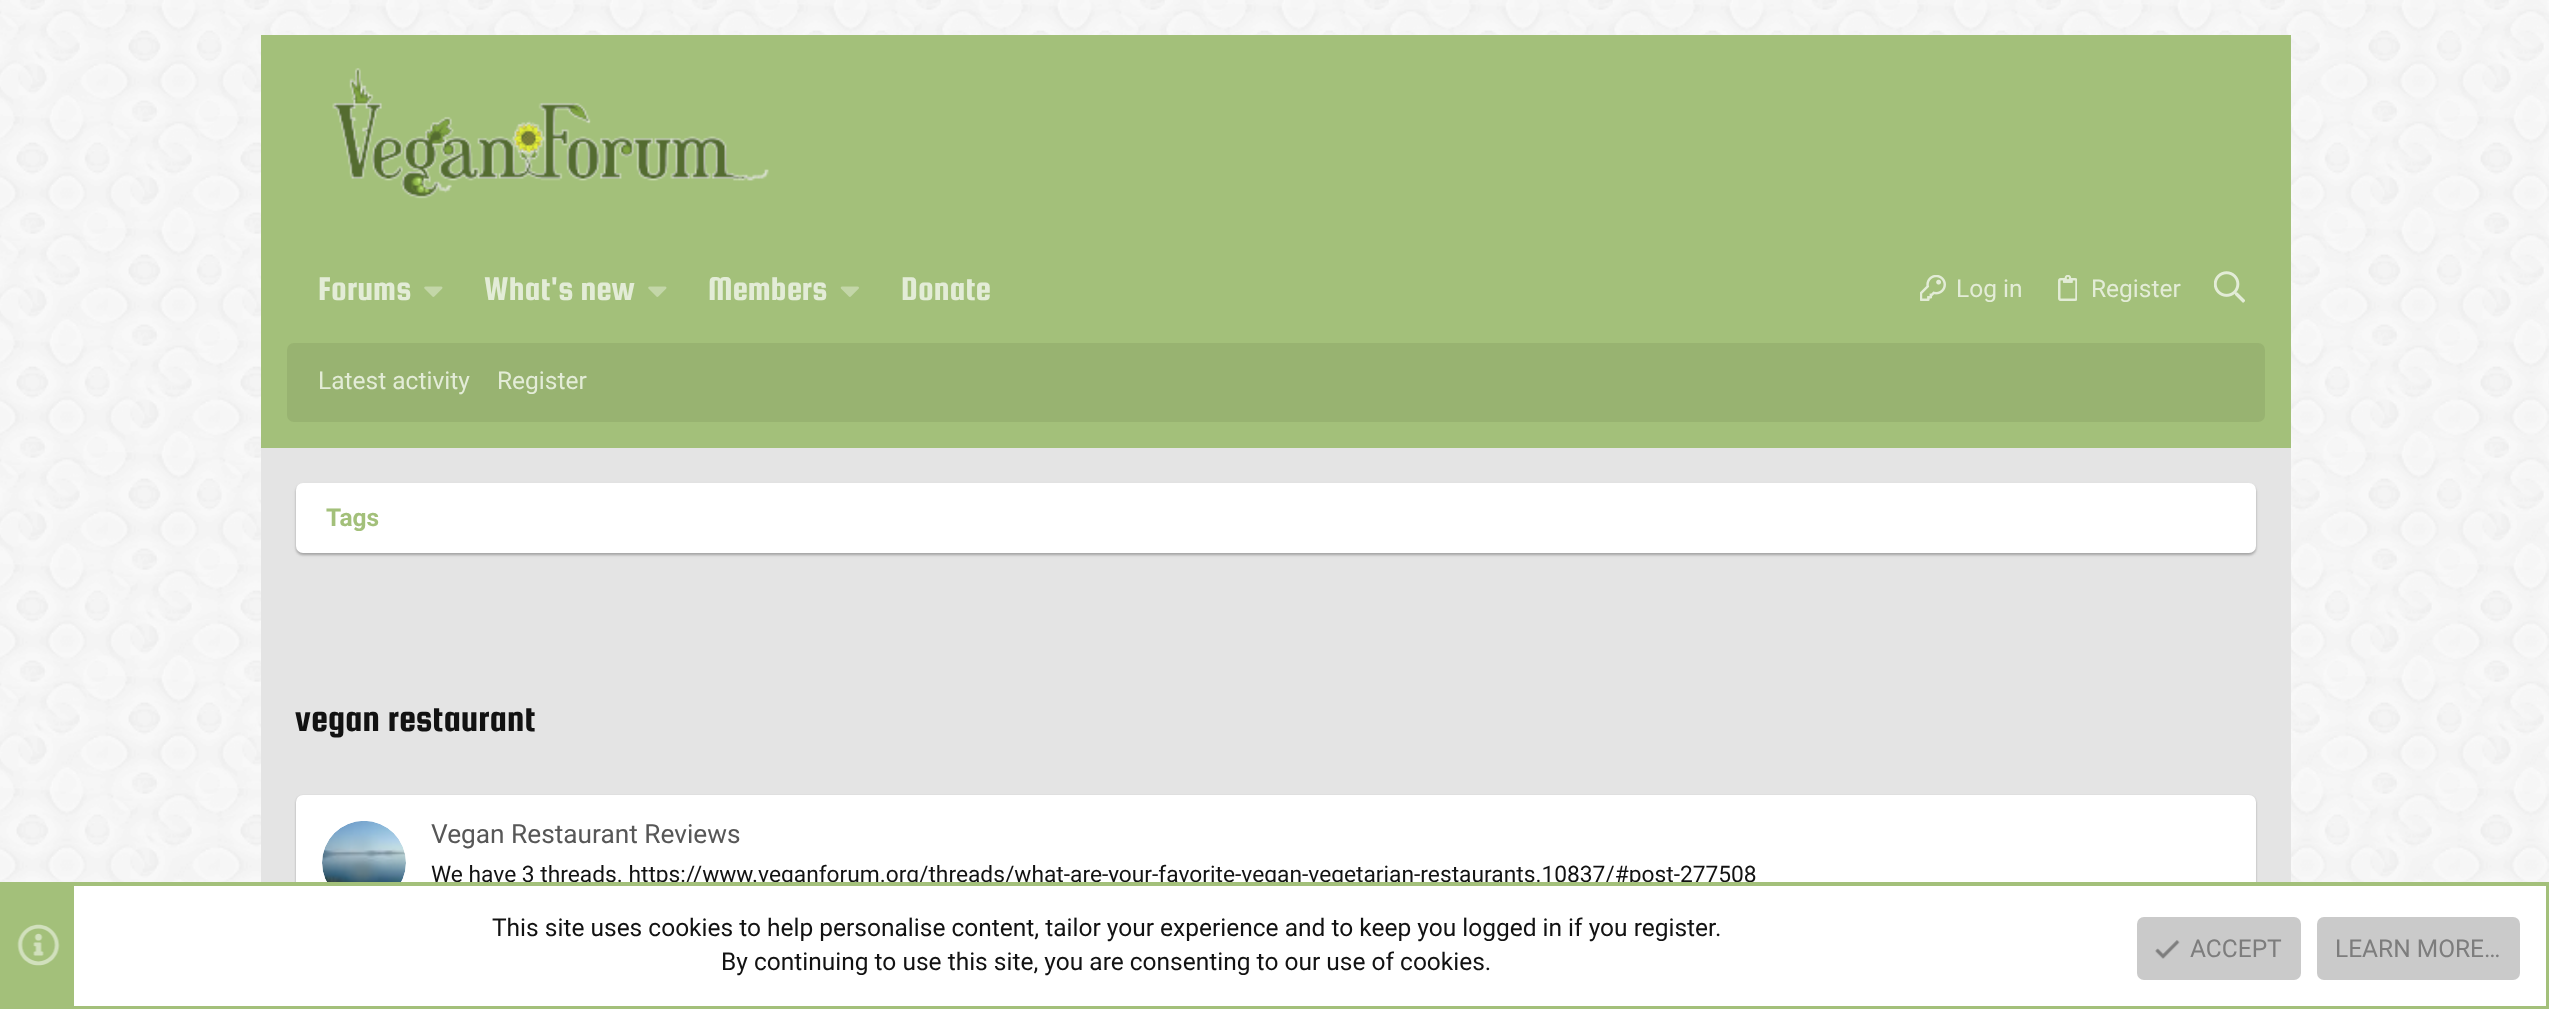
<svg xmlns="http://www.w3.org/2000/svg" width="2549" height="1009">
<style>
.a{font:35px Squada One;fill:#e3ecd7}
.b{font:24.5px Roboto;fill:#e3ecd7}
.c{font:bold 24.5px Roboto;fill:#a3c07a}
.d{font:38.5px Squada One;fill:#121212}
.e{font:26.25px Roboto;fill:#575757}
.f{font:22.75px Roboto;fill:#121212}
.g{font:24.5px Roboto;fill:#121212}
.h{font:24.5px Roboto;fill:#7d7d7d}
</style>
<rect width="100%" height="100%" fill="#fff"/>
<image href="1.png" x="0" y="0" width="2549" height="882"/>
<path fill="#e4e4e4" d="M261 448h2030v434H261z"/>
<path fill="#a3c07a" d="M261 35h2030v413H261z"/>
<image href="2.png" x="332" y="68" width="437" height="131"/>
<image href="3.png" x="424" y="286" width="19" height="11"/>
<image href="3.png" x="648" y="286" width="19" height="11"/>
<image href="4.png" x="840" y="286" width="19" height="11"/>
<image href="5.png" x="1920" y="275" width="26" height="26"/>
<image href="6.png" x="2058" y="275" width="19" height="26"/>
<image href="7.png" x="2214" y="271" width="31" height="32"/>
<rect fill="#98b371" x="287" y="343" width="1978" height="79" rx="7"/>
<rect fill="#0000000d" filter="blur(2px)" x="296" y="485" width="1960" height="70" rx="7"/>
<rect fill="#0000001a" filter="blur(1px)" x="296" y="485" width="1960" height="70" rx="7"/>
<rect fill="#00000026" filter="blur(1px)" x="296" y="485" width="1960" height="70" rx="7"/>
<rect fill="#fff" x="296" y="483" width="1960" height="70" rx="7"/>
<rect fill="#0000001a" filter="blur(1px)" x="296" y="796" width="1960" height="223" rx="7"/>
<rect fill="#00000026" filter="blur(1px)" x="296" y="796" width="1960" height="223" rx="7"/>
<rect fill="#fff" x="296" y="795" width="1960" height="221" rx="7"/>
<image href="8.png" x="322" y="821" width="84" height="61"/>
<text class="a" x="318" y="300">Forums</text>
<text class="a" x="484" y="300">What's new</text>
<text class="a" x="708" y="300">Members</text>
<text class="a" x="901" y="300">Donate</text>
<text class="b" x="1956" y="297">Log in</text>
<text class="b" x="2091" y="297">Register</text>
<text class="b" x="318" y="389">Latest activity</text>
<text class="b" x="497" y="389">Register</text>
<text class="c" x="326" y="526">Tags</text>
<text class="d" x="295" y="731">vegan restaurant</text>
<text class="e" x="431" y="843">Vegan Restaurant Reviews</text>
<text class="f" x="431" y="882">We have 3 threads. https://www.veganforum.org/threads/what-are-your-favorite-vegan-vegetarian-restaurants.10837/#post-277508</text>
<path fill="#fff" d="M294 886h1964v120H294z"/>
<path fill="none" stroke="#a3c07a" stroke-width="4" d="M2 884h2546v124H2z"/>
<path fill="#a3c07a" d="M4 886h70v120H4z"/>
<image href="9.png" x="17" y="924" width="43" height="42"/>
<text class="g" x="492" y="936">This site uses cookies to help personalise content, tailor your experience and to keep you logged in if you register.</text>
<text class="g" x="721" y="970">By continuing to use this site, you are consenting to our use of cookies.</text>
<rect fill="#cacaca" x="2137" y="917" width="164" height="63" rx="7"/>
<image href="10.png" x="2155" y="940" width="25" height="19"/>
<text class="h" x="2190" y="957">ACCEPT</text>
<rect fill="#cacaca" x="2317" y="917" width="203" height="63" rx="7"/>
<text class="h" x="2335" y="957">LEARN MORE…</text>
</svg>
